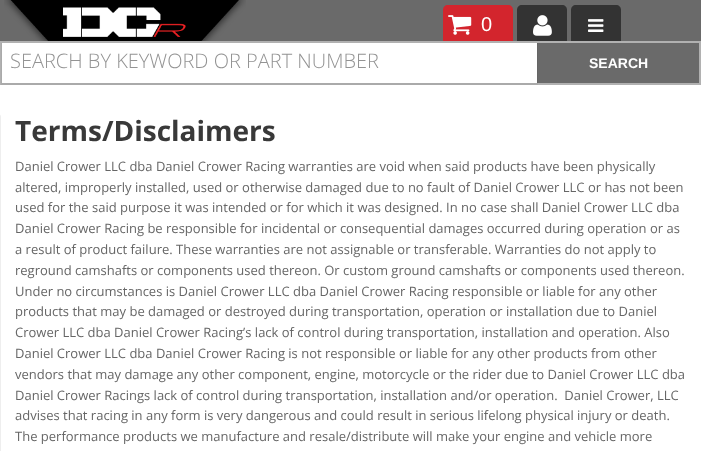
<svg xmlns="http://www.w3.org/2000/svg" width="701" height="451">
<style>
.a{font:20px Liberation Sans;fill:#fff}
.b{font:300 20px Open Sans;fill:#939393}
.c{font:bold 14px Liberation Sans;fill:#fff}
.d{font:bold 28px Open Sans;fill:#393939}
.e{font:13px Open Sans;fill:#666}
</style>
<rect width="100%" height="100%" fill="#fff"/>
<path fill="#6a6a6a" d="M0 0h701v41H0z"/>
<image href="1.png" x="4" y="0" width="242" height="41"/>
<path fill="#d3252d" d="M448 5h60c3 0 5 2 5 5v35h-70v-35c0-3 2-5 5-5z"/>
<image href="2.png" x="448" y="15" width="24" height="20"/>
<path fill="#333" d="M522 5h40c3 0 5 2 5 5v35h-50v-35c0-3 2-5 5-5z"/>
<image href="3.png" x="533" y="15" width="19" height="21"/>
<path fill="#333" d="M576 5h40c3 0 5 2 5 5v35h-50v-35c0-3 2-5 5-5z"/>
<image href="4.png" x="588" y="19" width="16" height="13"/>
<path fill="none" stroke="#b1b1b1" stroke-width="2" d="M1 42h699v42H1z"/>
<path fill="#6a6a6a" d="M537 43h162v40H537z"/>
<path fill="#0000000a" d="M1 43v42h537v-42h-1v40h-535v-40z"/>
<path fill="#fff" d="M443 43h94v2H443z"/>
<rect fill="#eee" filter="blur(0.5px)" x="-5" y="114" width="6" height="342" rx="3"/>
<text class="a" x="481" y="31">0</text>
<text class="b" x="10" y="68">SEARCH BY KEYWORD OR PART NUMBER</text>
<text class="c" x="589" y="68">SEARCH</text>
<text class="d" x="15" y="141">Terms/Disclaimers</text>
<text class="e" x="15" y="171">Daniel Crower LLC dba Daniel Crower Racing warranties are void when said products have been physically</text>
<text class="e" x="15" y="192">altered, improperly installed, used or otherwise damaged due to no fault of Daniel Crower LLC or has not been</text>
<text class="e" x="15" y="212">used for the said purpose it was intended or for which it was designed. In no case shall Daniel Crower LLC dba</text>
<text class="e" x="15" y="233">Daniel Crower Racing be responsible for incidental or consequential damages occurred during operation or as</text>
<text class="e" x="15" y="254">a result of product failure. These warranties are not assignable or transferable. Warranties do not apply to</text>
<text class="e" x="15" y="275">reground camshafts or components used thereon. Or custom ground camshafts or components used thereon.</text>
<text class="e" x="15" y="296">Under no circumstances is Daniel Crower LLC dba Daniel Crower Racing responsible or liable for any other</text>
<text class="e" x="15" y="316">products that may be damaged or destroyed during transportation, operation or installation due to Daniel</text>
<text class="e" x="15" y="337">Crower LLC dba Daniel Crower Racing’s lack of control during transportation, installation and operation. Also</text>
<text class="e" x="15" y="358">Daniel Crower LLC dba Daniel Crower Racing is not responsible or liable for any other products from other</text>
<text class="e" x="15" y="379">vendors that may damage any other component, engine, motorcycle or the rider due to Daniel Crower LLC dba</text>
<text class="e" xml:space="preserve" x="15" y="400">Daniel Crower Racings lack of control during transportation, installation and/or operation.  Daniel Crower, LLC</text>
<text class="e" x="15" y="420">advises that racing in any form is very dangerous and could result in serious lifelong physical injury or death.</text>
<text class="e" x="15" y="441">The performance products we manufacture and resale/distribute will make your engine and vehicle more</text>
</svg>
